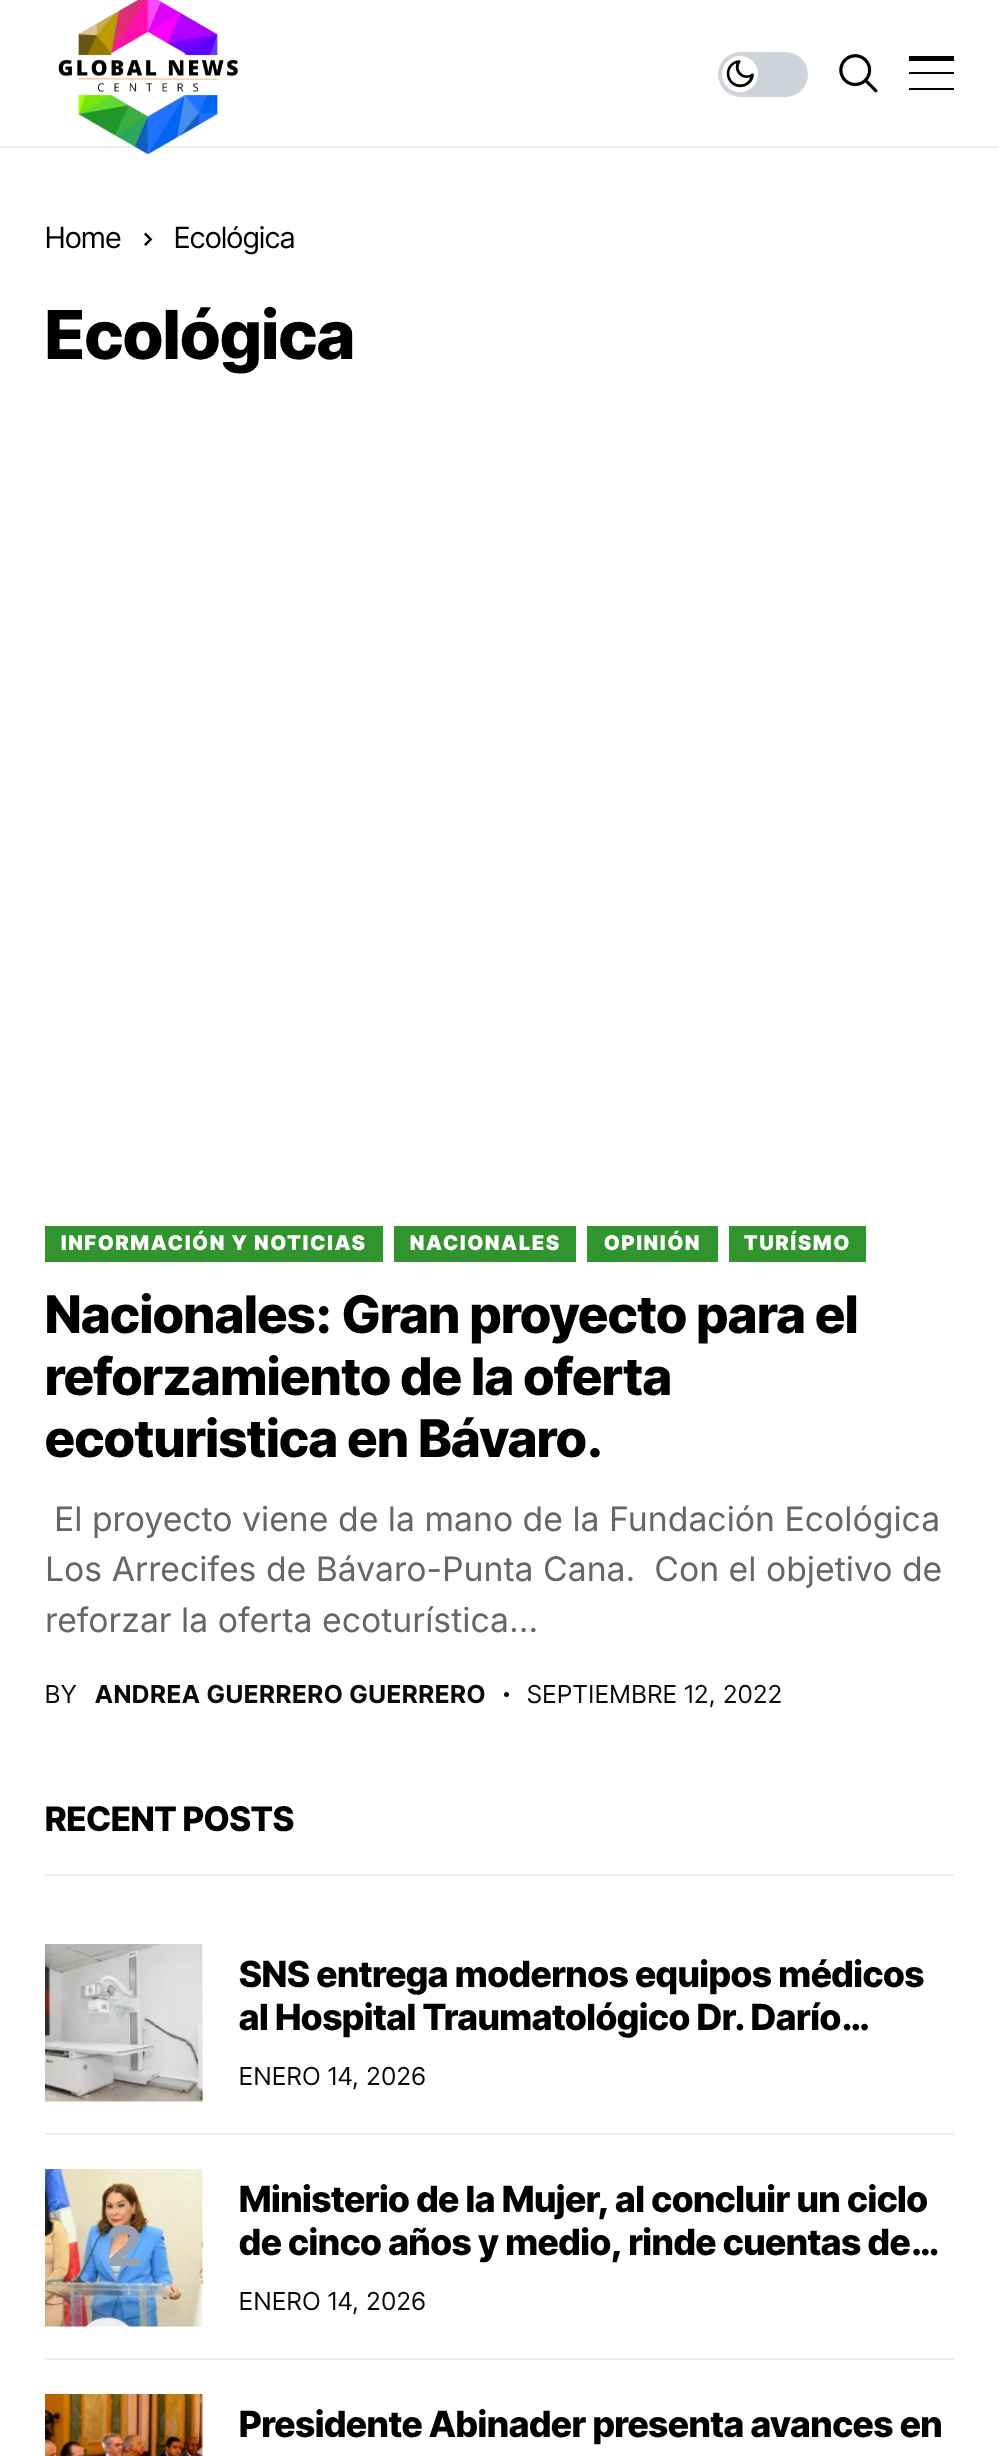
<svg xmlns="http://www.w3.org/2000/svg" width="999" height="2456">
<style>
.a{font:29.25px Inter Tight;fill:#000}
.b{font:800 67.5px Inter Tight;fill:#000}
.c{font:900 20.25px Inter Tight;letter-spacing:2px;fill:#fff}
.d{font:800 51.75px Inter Tight;fill:#000}
.e{font:33.75px Inter;fill:#666}
.f{font:24.75px Inter Tight;letter-spacing:1px;fill:#0a0a0a}
.g{font:bold 24.75px Inter Tight;letter-spacing:1px;fill:#0a0a0a}
.h{font:800 33.75px Inter Tight;fill:#000}
.i{font:800 36px Inter Tight;fill:#000}
.j{font:800 56px Inter Tight;fill:#9aa1b0}
</style>
<rect width="100%" height="100%" fill="#fff"/>
<path fill="#eee" d="M0 146h999v2H0z"/>
<image href="1.png" x="58" y="0" width="180" height="155"/>
<rect fill="#ced4da" x="718" y="52" width="90" height="45" rx="22.5"/>
<circle fill="#fff" cx="740" cy="74" r="18"/>
<image href="2.png" x="726" y="60" width="28" height="28"/>
<image href="3.png" x="839" y="54" width="39" height="39"/>
<path fill="#000" d="M909 56h45v5H909z"/>
<path fill="#000" d="M909 72h45v2H909z"/>
<path fill="#000" d="M909 88h45v2H909z"/>
<image href="4.png" x="144" y="232" width="9" height="14"/>
<path fill="#31942e" d="M45 1226h338v36H45z"/>
<path fill="#31942e" d="M394 1226h182v36H394z"/>
<path fill="#31942e" d="M587 1226h131v36H587z"/>
<path fill="#31942e" d="M729 1226h137v36H729z"/>
<circle fill="#0a0a0a" cx="506.5" cy="1694.5" r="2.5"/>
<path fill="#eee" d="M45 1874h909v2H45z"/>
<image href="5.png" x="45" y="1944" width="158" height="158"/>
<path fill="#eee" d="M45 2133h909v2H45z"/>
<image href="6.png" x="45" y="2169" width="158" height="158"/>
<path fill="#eee" d="M45 2358h909v2H45z"/>
<image href="7.png" x="45" y="2394" width="158" height="62"/>
<text class="a" x="45" y="248">Home</text>
<text class="a" x="174" y="248">Ecológica</text>
<text class="b" x="45" y="359">Ecológica</text>
<text class="c" x="61" y="1250">INFORMACIÓN Y NOTICIAS</text>
<text class="c" x="410" y="1250">NACIONALES</text>
<text class="c" x="604" y="1250">OPINIÓN</text>
<text class="c" x="744" y="1250">TURÍSMO</text>
<text class="d" x="45" y="1333">Nacionales: Gran proyecto para el</text>
<text class="d" x="45" y="1395">reforzamiento de la oferta</text>
<text class="d" x="45" y="1457">ecoturistica en Bávaro.</text>
<text class="e" x="54" y="1531">El proyecto viene de la mano de la Fundación Ecológica</text>
<text class="e" xml:space="preserve" x="45" y="1581">Los Arrecifes de Bávaro-Punta Cana.  Con el objetivo de</text>
<text class="e" x="45" y="1632">reforzar la oferta ecoturística...</text>
<text class="f" x="45" y="1703">BY</text>
<text class="g" x="95" y="1703">ANDREA GUERRERO GUERRERO</text>
<text class="f" x="527" y="1703">SEPTIEMBRE 12, 2022</text>
<text class="h" x="45" y="1831">RECENT POSTS</text>
<text class="i" x="239" y="1987">SNS entrega modernos equipos médicos</text>
<text class="i" x="239" y="2030">al Hospital Traumatológico Dr. Darío…</text>
<text class="f" x="239" y="2085">ENERO 14, 2026</text>
<text class="j" x="107" y="2266">2</text>
<text class="i" x="239" y="2212">Ministerio de la Mujer, al concluir un ciclo</text>
<text class="i" x="239" y="2255">de cinco años y medio, rinde cuentas de…</text>
<text class="f" x="239" y="2310">ENERO 14, 2026</text>
<text class="i" x="239" y="2437">Presidente Abinader presenta avances en</text>
</svg>
